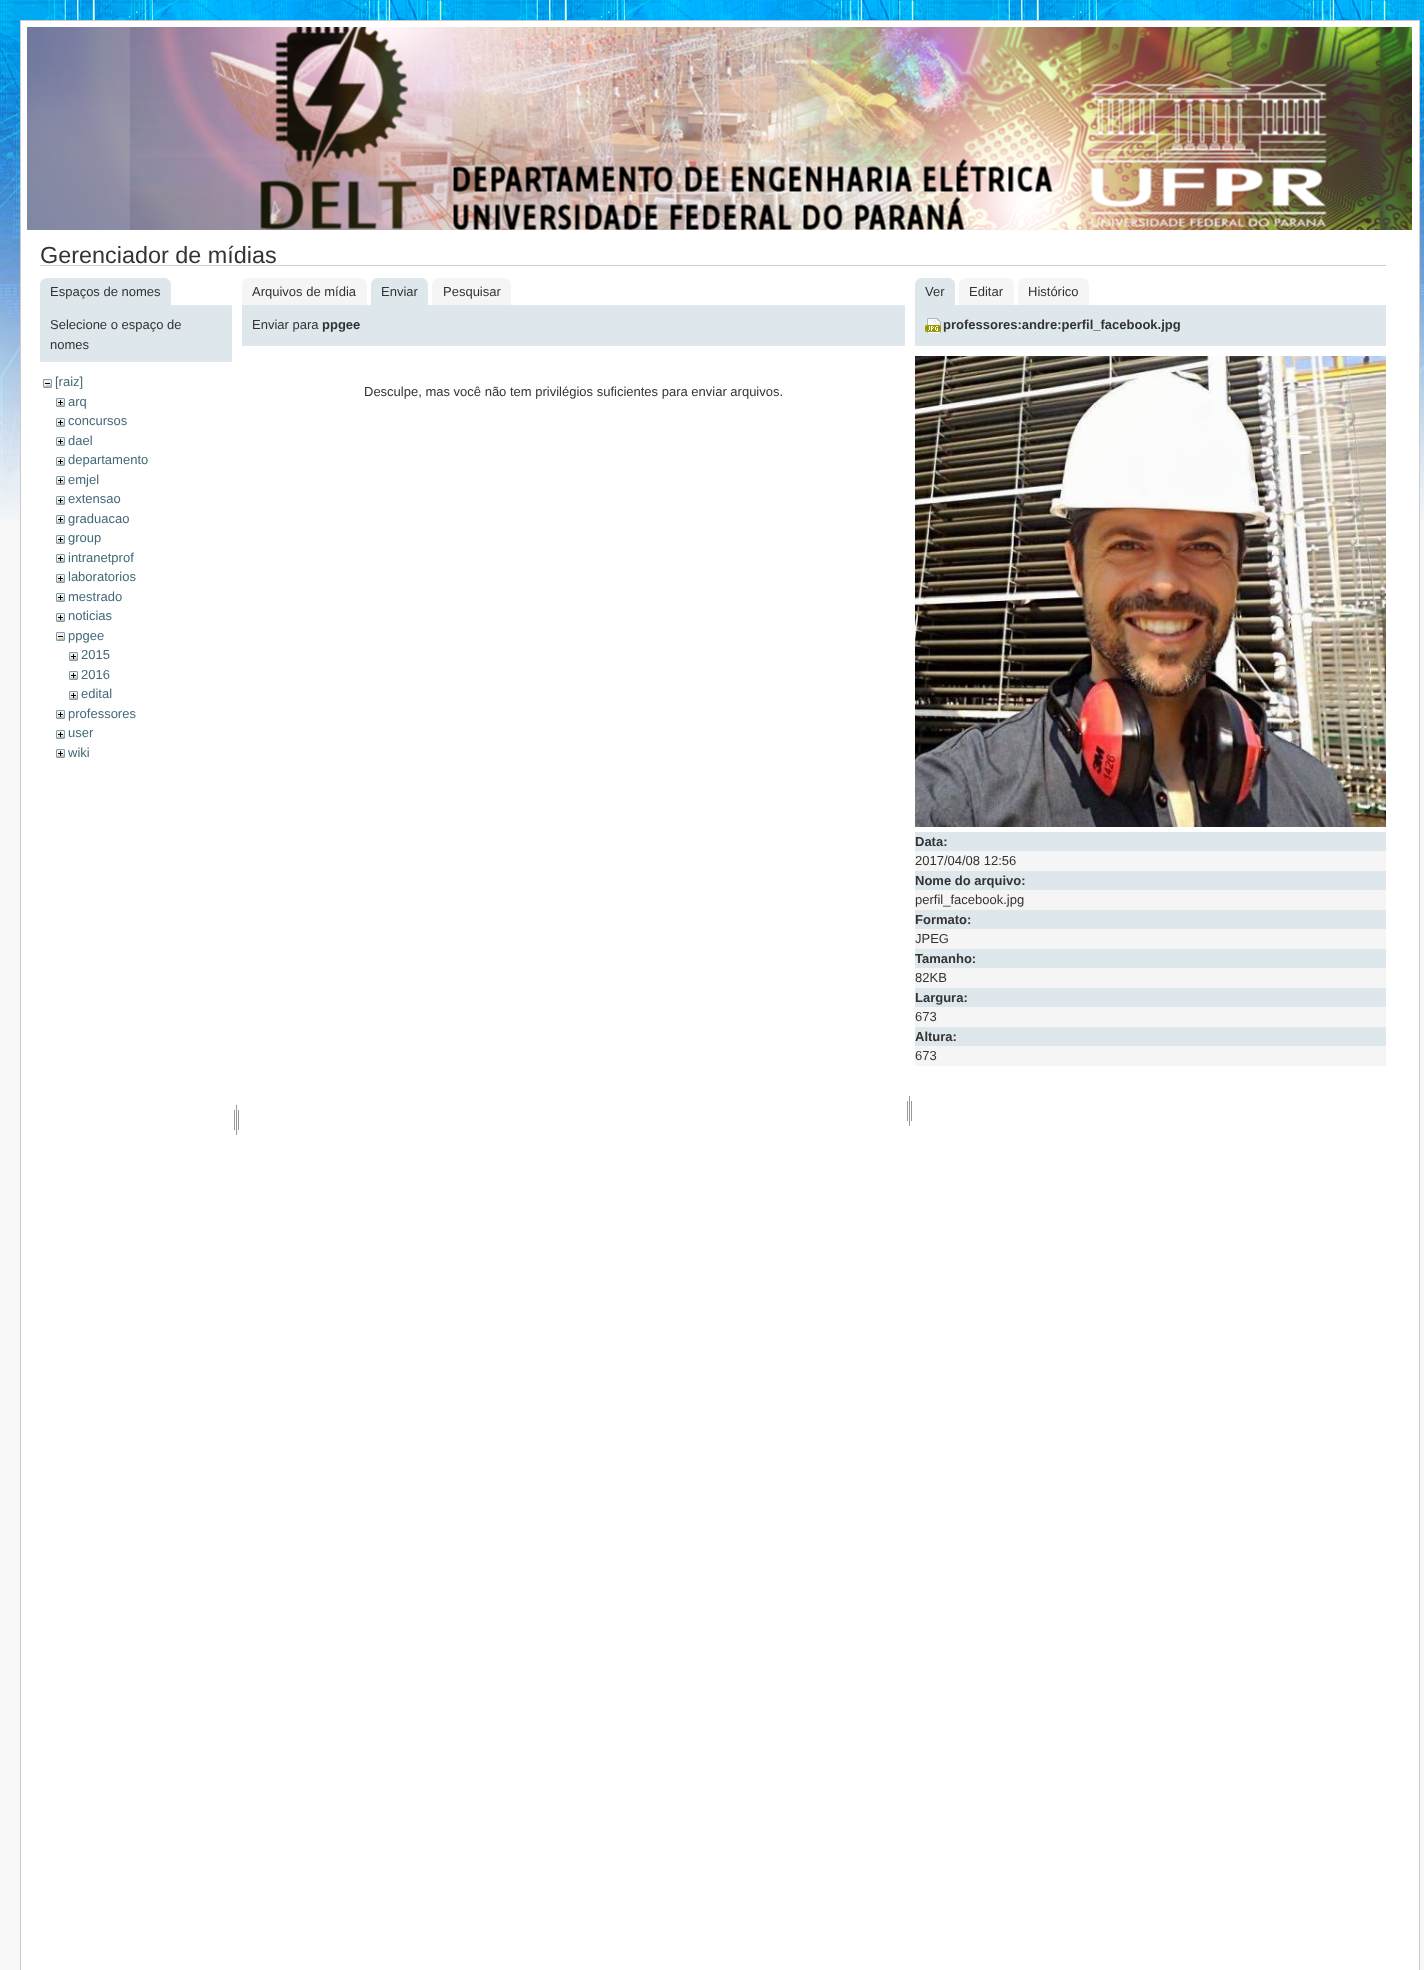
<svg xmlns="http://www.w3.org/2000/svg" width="1424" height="1970">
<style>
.a{font:23.4px Liberation Sans;fill:#333}
.b{font:13px Liberation Sans;fill:#333}
.c{font:13px Liberation Sans;fill:#436976}
.d{font:bold 13px Liberation Sans;fill:#333}
</style>
<rect width="100%" height="100%" fill="#f8f8f8"/>
<image href="1.png" x="0" y="0" width="1424" height="520"/>
<path fill="#fff" stroke="#ccc" d="M20.5 20.5h1399v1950H20.5z"/>
<image href="2.png" x="27" y="27" width="1385" height="203"/>
<path fill="#ccc" d="M40 265h1346v1H40z"/>
<path fill="#dee7ec" d="M47 278h117c4 0 7 3 7 7v20h-131v-20c0-4 3-7 7-7z"/>
<path fill="#dee7ec" d="M40 305h192v57H40z"/>
<image href="3.png" x="43" y="379" width="9" height="9"/>
<image href="4.png" x="56" y="398" width="9" height="9"/>
<image href="4.png" x="56" y="418" width="9" height="9"/>
<image href="4.png" x="56" y="437" width="9" height="9"/>
<image href="4.png" x="56" y="457" width="9" height="9"/>
<image href="4.png" x="56" y="476" width="9" height="9"/>
<image href="4.png" x="56" y="496" width="9" height="9"/>
<image href="4.png" x="56" y="515" width="9" height="9"/>
<image href="4.png" x="56" y="535" width="9" height="9"/>
<image href="4.png" x="56" y="554" width="9" height="9"/>
<image href="4.png" x="56" y="574" width="9" height="9"/>
<image href="4.png" x="56" y="593" width="9" height="9"/>
<image href="4.png" x="56" y="613" width="9" height="9"/>
<image href="3.png" x="56" y="632" width="9" height="9"/>
<image href="4.png" x="69" y="652" width="9" height="9"/>
<image href="4.png" x="69" y="671" width="9" height="9"/>
<image href="4.png" x="69" y="691" width="9" height="9"/>
<image href="4.png" x="56" y="710" width="9" height="9"/>
<image href="4.png" x="56" y="730" width="9" height="9"/>
<image href="4.png" x="56" y="749" width="9" height="9"/>
<image href="5.png" x="234" y="1104" width="5" height="31"/>
<path fill="#f5f5f5" d="M249 278h111c4 0 7 3 7 7v20h-125v-20c0-4 3-7 7-7z"/>
<path fill="#dee7ec" d="M378 278h43c4 0 7 3 7 7v20h-57v-20c0-4 3-7 7-7z"/>
<path fill="#f5f5f5" d="M439 278h65c4 0 7 3 7 7v20h-79v-20c0-4 3-7 7-7z"/>
<path fill="#dee7ec" d="M242 305h663v41H242z"/>
<image href="5.png" x="907" y="1095" width="5" height="31"/>
<path fill="#dee7ec" d="M922 278h26c4 0 7 3 7 7v20h-40v-20c0-4 3-7 7-7z"/>
<path fill="#f5f5f5" d="M966 278h41c4 0 7 3 7 7v20h-55v-20c0-4 3-7 7-7z"/>
<path fill="#f5f5f5" d="M1025 278h57c4 0 7 3 7 7v20h-71v-20c0-4 3-7 7-7z"/>
<path fill="#dee7ec" d="M915 305h471v41H915z"/>
<image href="6.png" x="925" y="318" width="16" height="15"/>
<image href="7.png" x="915" y="356" width="471" height="471"/>
<path fill="#dee7ec" d="M915 832h471v19H915z"/>
<path fill="#f5f5f5" d="M915 851h471v20H915z"/>
<path fill="#dee7ec" d="M915 871h471v19H915z"/>
<path fill="#f5f5f5" d="M915 890h471v20H915z"/>
<path fill="#dee7ec" d="M915 910h471v19H915z"/>
<path fill="#f5f5f5" d="M915 929h471v20H915z"/>
<path fill="#dee7ec" d="M915 949h471v19H915z"/>
<path fill="#f5f5f5" d="M915 968h471v20H915z"/>
<path fill="#dee7ec" d="M915 988h471v19H915z"/>
<path fill="#f5f5f5" d="M915 1007h471v20H915z"/>
<path fill="#dee7ec" d="M915 1027h471v19H915z"/>
<path fill="#f5f5f5" d="M915 1046h471v20H915z"/>
<text class="a" x="40" y="263">Gerenciador de mídias</text>
<text class="b" x="50" y="296">Espaços de nomes</text>
<text class="b" x="50" y="329">Selecione o espaço de</text>
<text class="b" x="50" y="349">nomes</text>
<text class="c" x="55" y="386">[raiz]</text>
<text class="c" x="68" y="406">arq</text>
<text class="c" x="68" y="425">concursos</text>
<text class="c" x="68" y="445">dael</text>
<text class="c" x="68" y="464">departamento</text>
<text class="c" x="68" y="484">emjel</text>
<text class="c" x="68" y="503">extensao</text>
<text class="c" x="68" y="523">graduacao</text>
<text class="c" x="68" y="542">group</text>
<text class="c" x="68" y="562">intranetprof</text>
<text class="c" x="68" y="581">laboratorios</text>
<text class="c" x="68" y="601">mestrado</text>
<text class="c" x="68" y="620">noticias</text>
<text class="c" x="68" y="640">ppgee</text>
<text class="c" x="81" y="659">2015</text>
<text class="c" x="81" y="679">2016</text>
<text class="c" x="81" y="698">edital</text>
<text class="c" x="68" y="718">professores</text>
<text class="c" x="68" y="737">user</text>
<text class="c" x="68" y="757">wiki</text>
<text class="b" x="252" y="296">Arquivos de mídia</text>
<text class="b" x="381" y="296">Enviar</text>
<text class="b" x="443" y="296">Pesquisar</text>
<text class="b" x="252" y="329">Enviar para</text>
<text class="d" x="322" y="329">ppgee</text>
<text class="b" x="364" y="396">Desculpe, mas você não tem privilégios suficientes para enviar arquivos.</text>
<text class="b" x="925" y="296">Ver</text>
<text class="b" x="969" y="296">Editar</text>
<text class="b" x="1028" y="296">Histórico</text>
<text class="d" x="943" y="329">professores:andre:perfil_facebook.jpg</text>
<text class="d" x="915" y="846">Data:</text>
<text class="b" x="915" y="865">2017/04/08 12:56</text>
<text class="d" x="915" y="885">Nome do arquivo:</text>
<text class="b" x="915" y="904">perfil_facebook.jpg</text>
<text class="d" x="915" y="924">Formato:</text>
<text class="b" x="915" y="943">JPEG</text>
<text class="d" x="915" y="963">Tamanho:</text>
<text class="b" x="915" y="982">82KB</text>
<text class="d" x="915" y="1002">Largura:</text>
<text class="b" x="915" y="1021">673</text>
<text class="d" x="915" y="1041">Altura:</text>
<text class="b" x="915" y="1060">673</text>
</svg>
